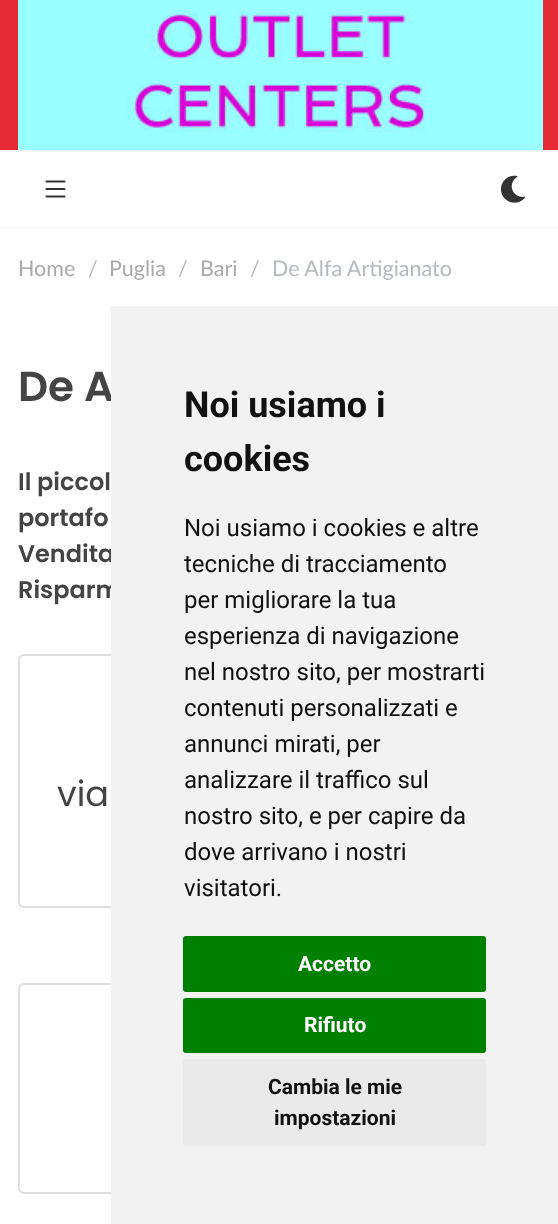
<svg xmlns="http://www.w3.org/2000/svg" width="558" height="1224">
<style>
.a{font:21.5px Lato;fill:#aaa}
.b{font:21.5px Lato;fill:#b6babe}
.c{font:600 42px Poppins;fill:#444}
.d{font:600 24px Poppins;fill:#444}
.e{font:35px Poppins;fill:#444}
.f{font:bold 36px Roboto;fill:#111}
.g{font:24px Roboto;fill:#111}
.h{font:bold 21px Roboto;fill:#fff}
.i{font:bold 21px Roboto;fill:#111}
</style>
<rect width="100%" height="100%" fill="#fff"/>
<path fill="#f5f5f5" d="M0 227h558v1H0z"/>
<path fill="#e82c36" d="M0 0h558v150H0z"/>
<image href="1.png" x="18" y="0" width="525" height="150"/>
<path fill="#f5f5f5" d="M0 150h558v2H0z"/>
<path fill="none" stroke="#333" stroke-width="2.2" stroke-linecap="round" d="M46.5 181.5h18m-18 7.5h18m0 7.5h-18"/>
<image href="2.png" x="500" y="175" width="25" height="28"/>
<rect fill="none" stroke="#dfdfdf" stroke-width="2" x="19" y="655" width="520" height="252" rx="5"/>
<rect fill="none" stroke="#dfdfdf" stroke-width="2" x="19" y="984" width="520" height="209" rx="5"/>
<text class="a" x="18" y="276">Home</text>
<text class="b" x="88" y="276">/</text>
<text class="a" x="109" y="276">Puglia</text>
<text class="b" x="178" y="276">/</text>
<text class="a" x="200" y="276">Bari</text>
<text class="b" x="250" y="276">/</text>
<text class="b" x="272" y="276">De Alfa Artigianato</text>
<text class="c" x="18" y="401">De A</text>
<text class="d" x="18" y="490">Il piccol</text>
<text class="d" x="18" y="526">portafo</text>
<text class="d" x="18" y="562">Vendita</text>
<text class="d" x="18" y="598">Risparm</text>
<text class="e" x="57" y="806">via</text>
<path fill="#f2f2f2" d="M111 306h447v918H111z"/>
<text class="f" x="184" y="417">Noi usiamo i</text>
<text class="f" x="184" y="471">cookies</text>
<text class="g" x="184" y="536">Noi usiamo i cookies e altre</text>
<text class="g" x="184" y="572">tecniche di tracciamento</text>
<text class="g" x="184" y="608">per migliorare la tua</text>
<text class="g" x="184" y="644">esperienza di navigazione</text>
<text class="g" x="184" y="680">nel nostro sito, per mostrarti</text>
<text class="g" x="184" y="716">contenuti personalizzati e</text>
<text class="g" x="184" y="752">annunci mirati, per</text>
<text class="g" x="184" y="788">analizzare il traffico sul</text>
<text class="g" x="184" y="824">nostro sito, e per capire da</text>
<text class="g" x="184" y="860">dove arrivano i nostri</text>
<text class="g" x="184" y="896">visitatori.</text>
<rect fill="#008000" x="183" y="936" width="303" height="56" rx="3"/>
<text class="h" x="298" y="971">Accetto</text>
<rect fill="#008000" x="183" y="998" width="303" height="55" rx="3"/>
<text class="h" x="304" y="1032">Rifiuto</text>
<rect fill="#eaeaea" x="183" y="1059" width="303" height="87" rx="3"/>
<text class="i" x="268" y="1094">Cambia le mie</text>
<text class="i" x="274" y="1125">impostazioni</text>
</svg>
